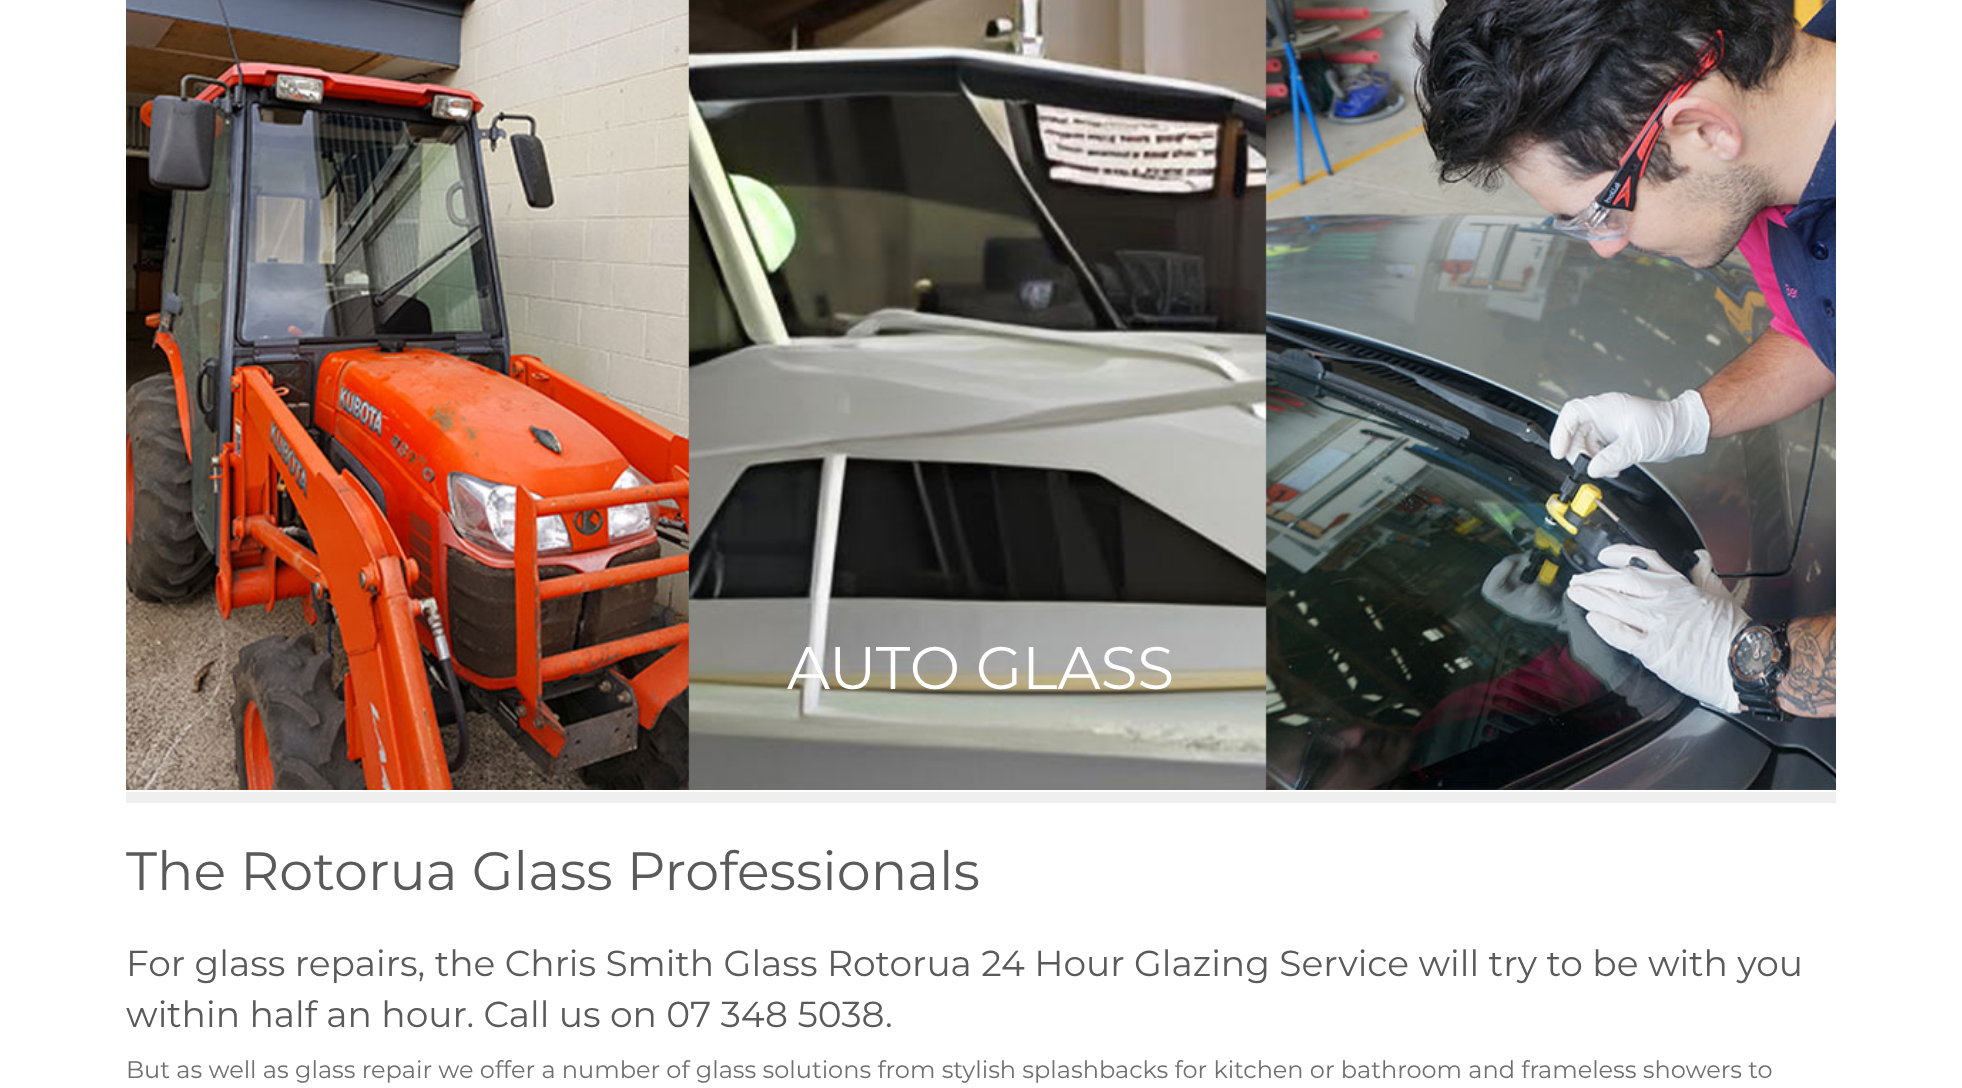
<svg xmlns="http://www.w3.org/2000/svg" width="1962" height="1088">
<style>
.a{font:60px Montserrat;fill:#fff}
.b{font:54px Montserrat;fill:#5a5a5a}
.c{font:36px Montserrat;fill:#5a5a5a}
.d{font:24px Montserrat;fill:#6f6f6f}
</style>
<rect width="100%" height="100%" fill="#fff"/>
<image href="1.png" x="126" y="0" width="1710" height="790"/>
<path fill="#efefef" d="M126 792h1710v11H126z"/>
<text class="a" x="787" y="689">AUTO GLASS</text>
<text class="b" x="126" y="890">The Rotorua Glass Professionals</text>
<text class="c" x="126" y="976">For glass repairs, the Chris Smith Glass Rotorua 24 Hour Glazing Service will try to be with you</text>
<text class="c" x="126" y="1027">within half an hour. Call us on 07 348 5038.</text>
<text class="d" x="126" y="1078">But as well as glass repair we offer a number of glass solutions from stylish splashbacks for kitchen or bathroom and frameless showers to</text>
</svg>
